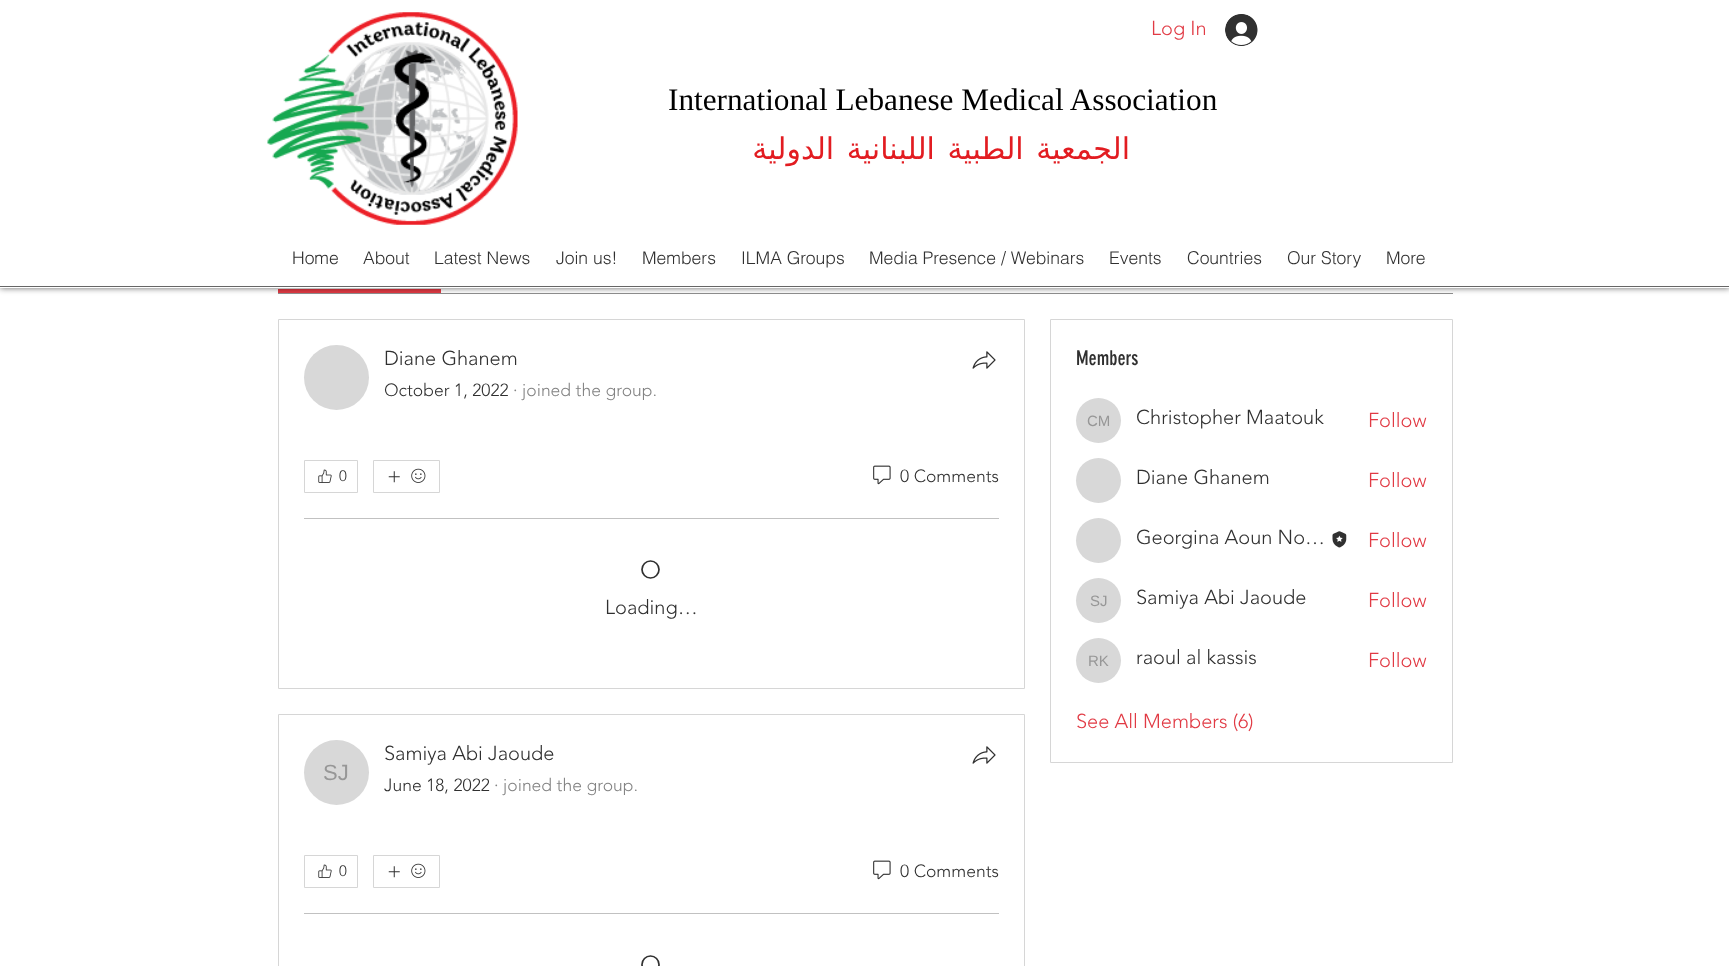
<svg xmlns="http://www.w3.org/2000/svg" width="1729" height="966">
<style>
.a{font:300 20px 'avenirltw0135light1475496';fill:#e13a44}
.b{font:31.25px Liberation Serif;fill:#000}
.c{font:30px DejaVu Sans;direction:rtl;fill:#e21c21}
.d{font:300 17.5px helvetica;fill:#303030}
.e{font:300 20px 'avenirltw0135light1475496';fill:#303030}
.f{font:300 17.5px 'avenirltw0135light1475496';fill:#303030}
.g{font:300 17.5px 'avenirltw0135light1475496';fill:#838383}
.h{font:300 15px 'avenirltw0135light1475496';fill:#303030}
.i{font:22px Liberation Sans;fill:#979797}
.j{font:20px 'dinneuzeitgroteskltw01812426';fill:#303030}
.k{font:15px Liberation Sans;fill:#979797}
</style>
<rect width="100%" height="100%" fill="#fff"/>
<path fill="#8f8f8f" d="M278 293h1175v1H278z"/>
<path fill="#e13a44" d="M278 289h163v4H278z"/>
<path fill="#00000099" filter="blur(3px)" d="M0 0h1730v288H0z"/>
<path fill="#fff" d="M0 0h1729v288H0z"/>
<path fill="#666" d="M0 286h1729v1H0z"/>
<image href="1.png" x="267" y="12" width="251" height="213"/>
<image href="2.png" x="1225" y="14" width="33" height="32"/>
<path fill="none" stroke="#d6d6d6" d="M278.5 319.5h746v369H278.5z"/>
<circle fill="#d8d8d8" cx="336.5" cy="377.5" r="32.5"/>
<image href="3.png" x="972" y="351" width="24" height="18"/>
<path fill="none" stroke="#d6d6d6" d="M304.5 460.5h53v32H304.5z"/>
<image href="4.png" x="318" y="469" width="14" height="14"/>
<path fill="none" stroke="#d6d6d6" d="M373.5 460.5h66v32H373.5z"/>
<image href="5.png" x="388" y="471" width="12" height="12"/>
<image href="6.png" x="411" y="468" width="15" height="15"/>
<image href="7.png" x="873" y="465" width="18" height="20"/>
<path fill="#c1c1c1" d="M304 518h695v1H304z"/>
<circle fill="none" stroke="#303030" stroke-width="1.7" cx="650.5" cy="569.5" r="8.5"/>
<path fill="none" stroke="#d6d6d6" d="M278.5 714.5h746v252H278.5z"/>
<image href="3.png" x="972" y="746" width="24" height="18"/>
<circle fill="#d8d8d8" cx="336.5" cy="772.5" r="32.5"/>
<path fill="none" stroke="#d6d6d6" d="M304.5 855.5h53v32H304.5z"/>
<image href="4.png" x="318" y="864" width="14" height="14"/>
<path fill="none" stroke="#d6d6d6" d="M373.5 855.5h66v32H373.5z"/>
<image href="5.png" x="388" y="866" width="12" height="12"/>
<image href="6.png" x="411" y="863" width="15" height="15"/>
<image href="7.png" x="873" y="860" width="18" height="20"/>
<path fill="#c1c1c1" d="M304 913h695v1H304z"/>
<circle fill="none" stroke="#303030" stroke-width="1.7" cx="650.5" cy="964.5" r="8.5"/>
<path fill="none" stroke="#d6d6d6" d="M1050.5 319.5h402v443H1050.5z"/>
<circle fill="#d8d8d8" cx="1098.5" cy="420.5" r="22.5"/>
<circle fill="#d8d8d8" cx="1098.5" cy="480.5" r="22.5"/>
<circle fill="#d8d8d8" cx="1098.5" cy="540.5" r="22.5"/>
<image href="8.png" x="1332" y="531" width="15" height="17"/>
<circle fill="#d8d8d8" cx="1098.5" cy="600.5" r="22.5"/>
<circle fill="#d8d8d8" cx="1098.5" cy="660.5" r="22.5"/>
<text class="a" x="1151" y="35">Log In</text>
<text class="b" x="668" y="110">International Lebanese Medical Association</text>
<text class="c" x="1130" y="159" word-spacing="3">الجمعية الطبية اللبنانية الدولية</text>
<text class="d" x="292" y="264">Home</text>
<text class="d" x="363" y="264">About</text>
<text class="d" x="434" y="264">Latest News</text>
<text class="d" x="556" y="264">Join us!</text>
<text class="d" x="642" y="264">Members</text>
<text class="d" x="741" y="264">ILMA Groups</text>
<text class="d" x="869" y="264">Media Presence / Webinars</text>
<text class="d" x="1109" y="264">Events</text>
<text class="d" x="1187" y="264">Countries</text>
<text class="d" x="1287" y="264">Our Story</text>
<text class="d" x="1386" y="264">More</text>
<text class="e" x="384" y="365">Diane Ghanem</text>
<text class="f" x="384" y="396">October 1, 2022</text>
<text class="g" x="513" y="396">· joined the group.</text>
<text class="h" x="339" y="481">0</text>
<text class="f" x="900" y="482">0 Comments</text>
<text class="e" x="605" y="614">Loading…</text>
<text class="e" x="384" y="760">Samiya Abi Jaoude</text>
<text class="f" x="384" y="791">June 18, 2022</text>
<text class="g" x="494" y="791">· joined the group.</text>
<text class="i" x="323" y="780">SJ</text>
<text class="h" x="339" y="876">0</text>
<text class="f" x="900" y="877">0 Comments</text>
<text class="j" x="1076" y="365">Members</text>
<text class="k" x="1087" y="426">CM</text>
<text class="e" x="1136" y="424">Christopher Maatouk</text>
<text class="a" x="1368" y="427">Follow</text>
<text class="e" x="1136" y="484">Diane Ghanem</text>
<text class="a" x="1368" y="487">Follow</text>
<text class="e" x="1136" y="544">Georgina Aoun No…</text>
<text class="a" x="1368" y="547">Follow</text>
<text class="k" x="1090" y="606">SJ</text>
<text class="e" x="1136" y="604">Samiya Abi Jaoude</text>
<text class="a" x="1368" y="607">Follow</text>
<text class="k" x="1088" y="666">RK</text>
<text class="e" x="1136" y="664">raoul al kassis</text>
<text class="a" x="1368" y="667">Follow</text>
<text class="a" x="1076" y="728">See All Members (6)</text>
</svg>
